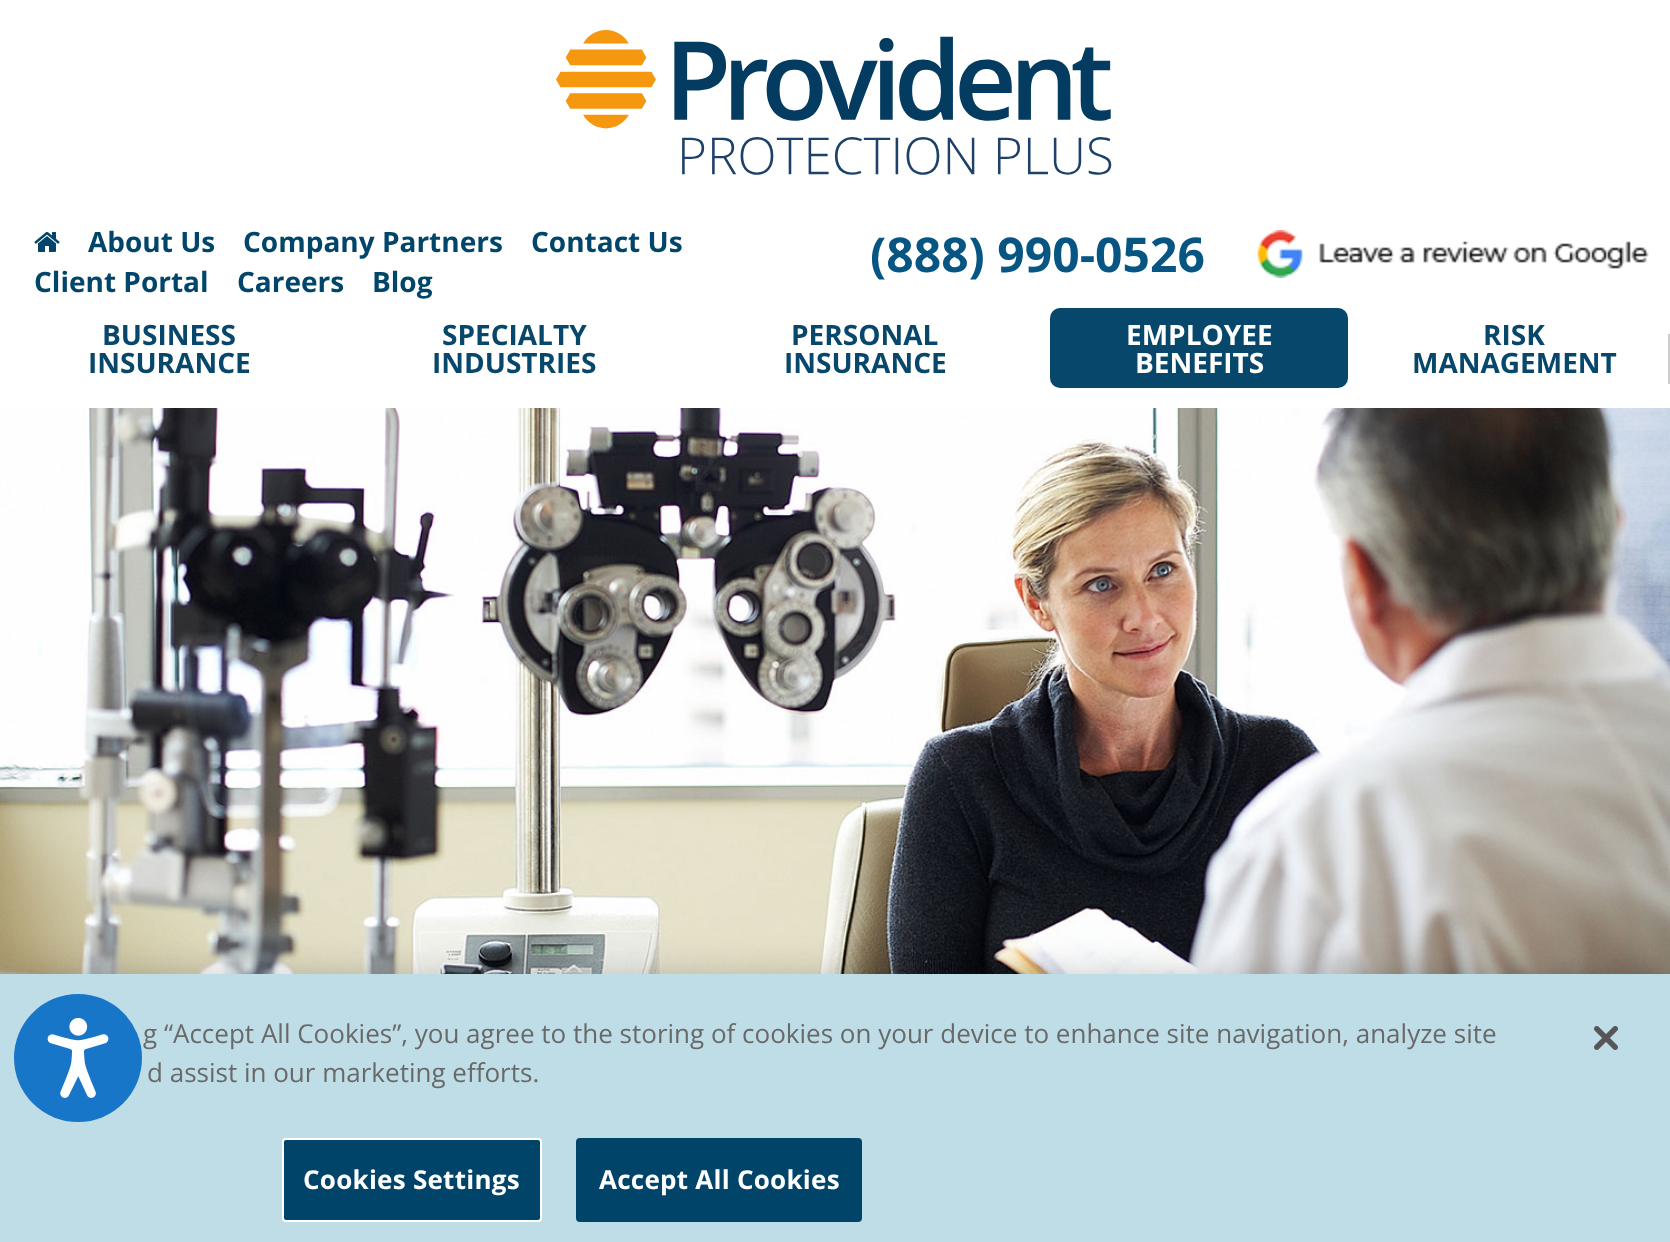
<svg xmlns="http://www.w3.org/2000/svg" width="1670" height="1242">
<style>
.a{font:bold 28px Open Sans;fill:#00456a}
.b{font:bold 48px Open Sans;fill:#065582}
.c{font:bold 28px Open Sans;fill:#07476b}
.d{font:bold 28px Open Sans;fill:#fff}
.e{font:26.02px Open Sans;fill:#696969}
.f{font:bold 26.02px Open Sans;letter-spacing:0.25px;fill:#fff}
</style>
<rect width="100%" height="100%" fill="#fff"/>
<image href="1.png" x="556" y="30" width="556" height="145"/>
<image href="2.png" x="34" y="232" width="26" height="20"/>
<image href="3.png" x="1257" y="230" width="392" height="48"/>
<path fill="#ccc" d="M1668 334h2v50H1668z"/>
<rect fill="#07476b" x="1050" y="308" width="298" height="80" rx="10"/>
<image href="4.png" x="0" y="408" width="1670" height="566"/>
<path fill="#00000033" filter="blur(18px)" d="M0 974h1670v268H0z"/>
<path fill="#bedde6" d="M0 974h1670v268H0z"/>
<circle fill="#1876c9" cx="78" cy="1058" r="64"/>
<image href="5.png" x="47" y="1018" width="62" height="80"/>
<rect fill="#00446a" stroke="#fff" stroke-width="2" x="283" y="1139" width="258" height="82" rx="3"/>
<rect fill="#00446a" stroke="#00446a" stroke-width="2" x="577" y="1139" width="284" height="82" rx="3"/>
<image href="6.png" x="1594" y="1026" width="24" height="24"/>
<text class="a" x="88" y="252">About Us</text>
<text class="a" x="243" y="252">Company Partners</text>
<text class="a" x="531" y="252">Contact Us</text>
<text class="a" x="34" y="292">Client Portal</text>
<text class="a" x="237" y="292">Careers</text>
<text class="a" x="372" y="292">Blog</text>
<text class="b" x="870" y="272">(888) 990-0526</text>
<text class="c" x="102" y="345">BUSINESS</text>
<text class="c" x="88" y="373">INSURANCE</text>
<text class="c" x="442" y="345">SPECIALTY</text>
<text class="c" x="432" y="373">INDUSTRIES</text>
<text class="c" x="791" y="345">PERSONAL</text>
<text class="c" x="784" y="373">INSURANCE</text>
<text class="d" x="1126" y="345">EMPLOYEE</text>
<text class="d" x="1135" y="373">BENEFITS</text>
<text class="c" x="1483" y="345">RISK</text>
<text class="c" x="1412" y="373">MANAGEMENT</text>
<text class="e" x="143" y="1043">g “Accept All Cookies”, you agree to the storing of cookies on your device to enhance site navigation, analyze site</text>
<text class="e" x="147" y="1082">d assist in our marketing efforts.</text>
<text class="f" x="303" y="1189">Cookies Settings</text>
<text class="f" x="599" y="1189">Accept All Cookies</text>
</svg>
